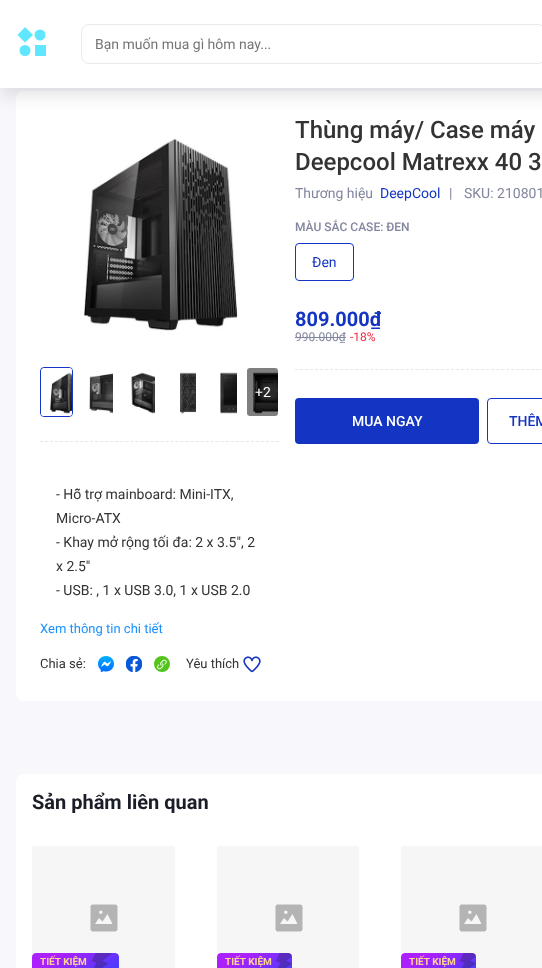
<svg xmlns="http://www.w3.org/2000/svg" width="542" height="968">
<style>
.a{font:14px Roboto;fill:#757575}
.b{font:500 24px Roboto;fill:#333}
.c{font:14px Roboto;fill:#82869e}
.d{font:14px Roboto;fill:#1435c3}
.e{font:500 12px Roboto;fill:#82869e}
.f{font:bold 20px Roboto;fill:#1435c3}
.g{font:12px Roboto;fill:#82869e}
.h{font:12px Roboto;fill:#ef2741}
.i{font:500 14px Roboto;fill:#fff}
.j{font:500 14px Roboto;fill:#1435c3}
.k{font:14px Roboto;fill:#fff}
.l{font:14px Roboto;fill:#333}
.m{font:13px Roboto;fill:#1990ff}
.n{font:13px Roboto;fill:#333}
.o{font:bold 20px Roboto;fill:#1b1d29}
.p{font:bold 10px Roboto;fill:#ffd591}
</style>
<defs>
<clipPath id="clip1"><path d="M295 305h86v24H295z"/></clipPath>
</defs>
<rect width="100%" height="100%" fill="#f8f8fc"/>
<rect fill="#fff" x="16" y="91" width="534" height="610" rx="8"/>
<path fill="#0000001a" filter="blur(8px)" d="M0 8h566v88H0z"/>
<path fill="#fff" d="M0 0h542v88H0z"/>
<path fill="#5fe7ff" d="M25 42.5l-7.5-7.5l7.5-8l8 8z"/>
<circle fill="#5fe7ff" cx="40" cy="35" r="5.5"/>
<circle fill="#5fe7ff" cx="25" cy="50.5" r="5.5"/>
<path fill="#5fe7ff" d="M35 45h11v11H35z"/>
<rect fill="none" stroke="#eaeaea" x="81.5" y="24.5" width="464" height="39" rx="7.5"/>
<rect fill="none" stroke="#1435c3" x="295.5" y="243.5" width="58" height="37" rx="3.5"/>
<path fill="#82869e" d="M295 337h51v1H295z"/>
<path fill="none" stroke="#e4e5f0" stroke-dasharray="3 2.03" d="M295 369.5h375"/>
<rect fill="#1435c3" x="295" y="398" width="184" height="46" rx="4"/>
<rect fill="none" stroke="#1435c3" x="487.5" y="398.5" width="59" height="45" rx="3.5"/>
<image href="1.png" x="84" y="138" width="154" height="193"/>
<rect fill="none" stroke="#1435c3" x="40.5" y="367.5" width="32" height="49" rx="3.5"/>
<image href="2.png" x="41" y="368" width="31" height="48"/>
<image href="3.png" x="89" y="373" width="24" height="41"/>
<image href="4.png" x="131" y="372" width="24" height="42"/>
<image href="5.png" x="180" y="372" width="16" height="42"/>
<image href="6.png" x="220" y="372" width="17" height="42"/>
<image href="7.png" x="252" y="372" width="26" height="42"/>
<rect fill="#00000080" x="247" y="368" width="31" height="48" rx="3"/>
<path fill="none" stroke="#e4e5f0" stroke-dasharray="3 2.02" d="M40 441.5h239"/>
<image href="8.png" x="98" y="656" width="16" height="16"/>
<image href="9.png" x="126" y="656" width="16" height="16"/>
<circle fill="#52c41a" cx="162" cy="664" r="8"/>
<image href="10.png" x="157" y="659" width="10" height="11"/>
<image href="11.png" x="243" y="656" width="18" height="17"/>
<rect fill="#fff" x="16" y="774" width="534" height="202" rx="8"/>
<path fill="#f6f6f6" d="M32 846h143v122H32z"/>
<path fill="#b4b4b4" fill-rule="evenodd" d="M115 904.5c1.5 0 2.5 1 2.5 2v22.5c0 1.5-1 2.5-2.5 2.5h-22.5c-1 0-2-1-2-2.5v-22.5c0-1 1-2 2-2zm-7.5 9.5l-5 7.5l-3.5-3.5l-4 6h17.5zm-6.5-3.5c-2.5 0-2.5 3.5 0 3.5c2 0 2-3.5 0-3.5z"/>
<image href="12.png" x="32" y="953" width="87" height="15"/>
<path fill="#f6f6f6" d="M217 846h142v122H217z"/>
<path fill="#b4b4b4" fill-rule="evenodd" d="M300 904.5c1.5 0 2.5 1 2.5 2v22.5c0 1.5-1 2.5-2.5 2.5h-22.5c-1 0-2-1-2-2.5v-22.5c0-1 1-2 2-2zm-7.5 9.5l-5 7.5l-3.5-3.5l-4 6h17.5zm-6.5-3.5c-2.5 0-2.5 3.5 0 3.5c2 0 2-3.5 0-3.5z"/>
<image href="13.png" x="217" y="953" width="75" height="15"/>
<path fill="#f6f6f6" d="M401 846h141v122H401z"/>
<path fill="#b4b4b4" fill-rule="evenodd" d="M484 904.5c1.5 0 2.5 1 2.5 2v22.5c0 1.5-1 2.5-2.5 2.5h-22.5c-1 0-2-1-2-2.5v-22.5c0-1 1-2 2-2zm-7.5 9.5l-5 7.5l-3.5-3.5l-4 6h17.5zm-6.5-3.5c-2.5 0-2.5 3.5 0 3.5c2 0 2-3.5 0-3.5z"/>
<image href="13.png" x="401" y="953" width="75" height="15"/>
<text class="a" x="95" y="49">Bạn muốn mua gì hôm nay...</text>
<text class="b" x="295" y="138">Thùng máy/ Case máy</text>
<text class="b" x="295" y="170">Deepcool Matrexx 40 3</text>
<text class="c" x="295" y="198">Thương hiệu</text>
<text class="d" x="380" y="198">DeepCool</text>
<text class="c" x="449" y="198">|</text>
<text class="c" x="464" y="198">SKU: 210801</text>
<text class="e" x="295" y="231">MÀU SẮC CASE: ĐEN</text>
<text class="d" x="312" y="267">Đen</text>
<g clip-path="url(#clip1)">
<text class="f" x="295" y="326">809.000₫</text>
</g>
<text class="g" x="295" y="341">990.000₫</text>
<text class="h" x="350" y="341">-18%</text>
<text class="i" x="352" y="426">MUA NGAY</text>
<text class="j" x="509" y="426">THÊM</text>
<text class="k" x="255" y="397">+2</text>
<text class="l" x="56" y="499">- Hỗ trợ mainboard: Mini-ITX,</text>
<text class="l" x="56" y="523">Micro-ATX</text>
<text class="l" x="56" y="547">- Khay mở rộng tối đa: 2 x 3.5", 2</text>
<text class="l" x="56" y="571">x 2.5"</text>
<text class="l" x="56" y="595">- USB: , 1 x USB 3.0, 1 x USB 2.0</text>
<text class="m" x="40" y="633">Xem thông tin chi tiết</text>
<text class="n" x="40" y="668">Chia sẻ:</text>
<text class="n" x="186" y="668">Yêu thích</text>
<text class="o" x="32" y="809">Sản phẩm liên quan</text>
<text class="p" x="40" y="965">TIẾT KIỆM</text>
<text class="p" x="225" y="965">TIẾT KIỆM</text>
<text class="p" x="409" y="965">TIẾT KIỆM</text>
</svg>
